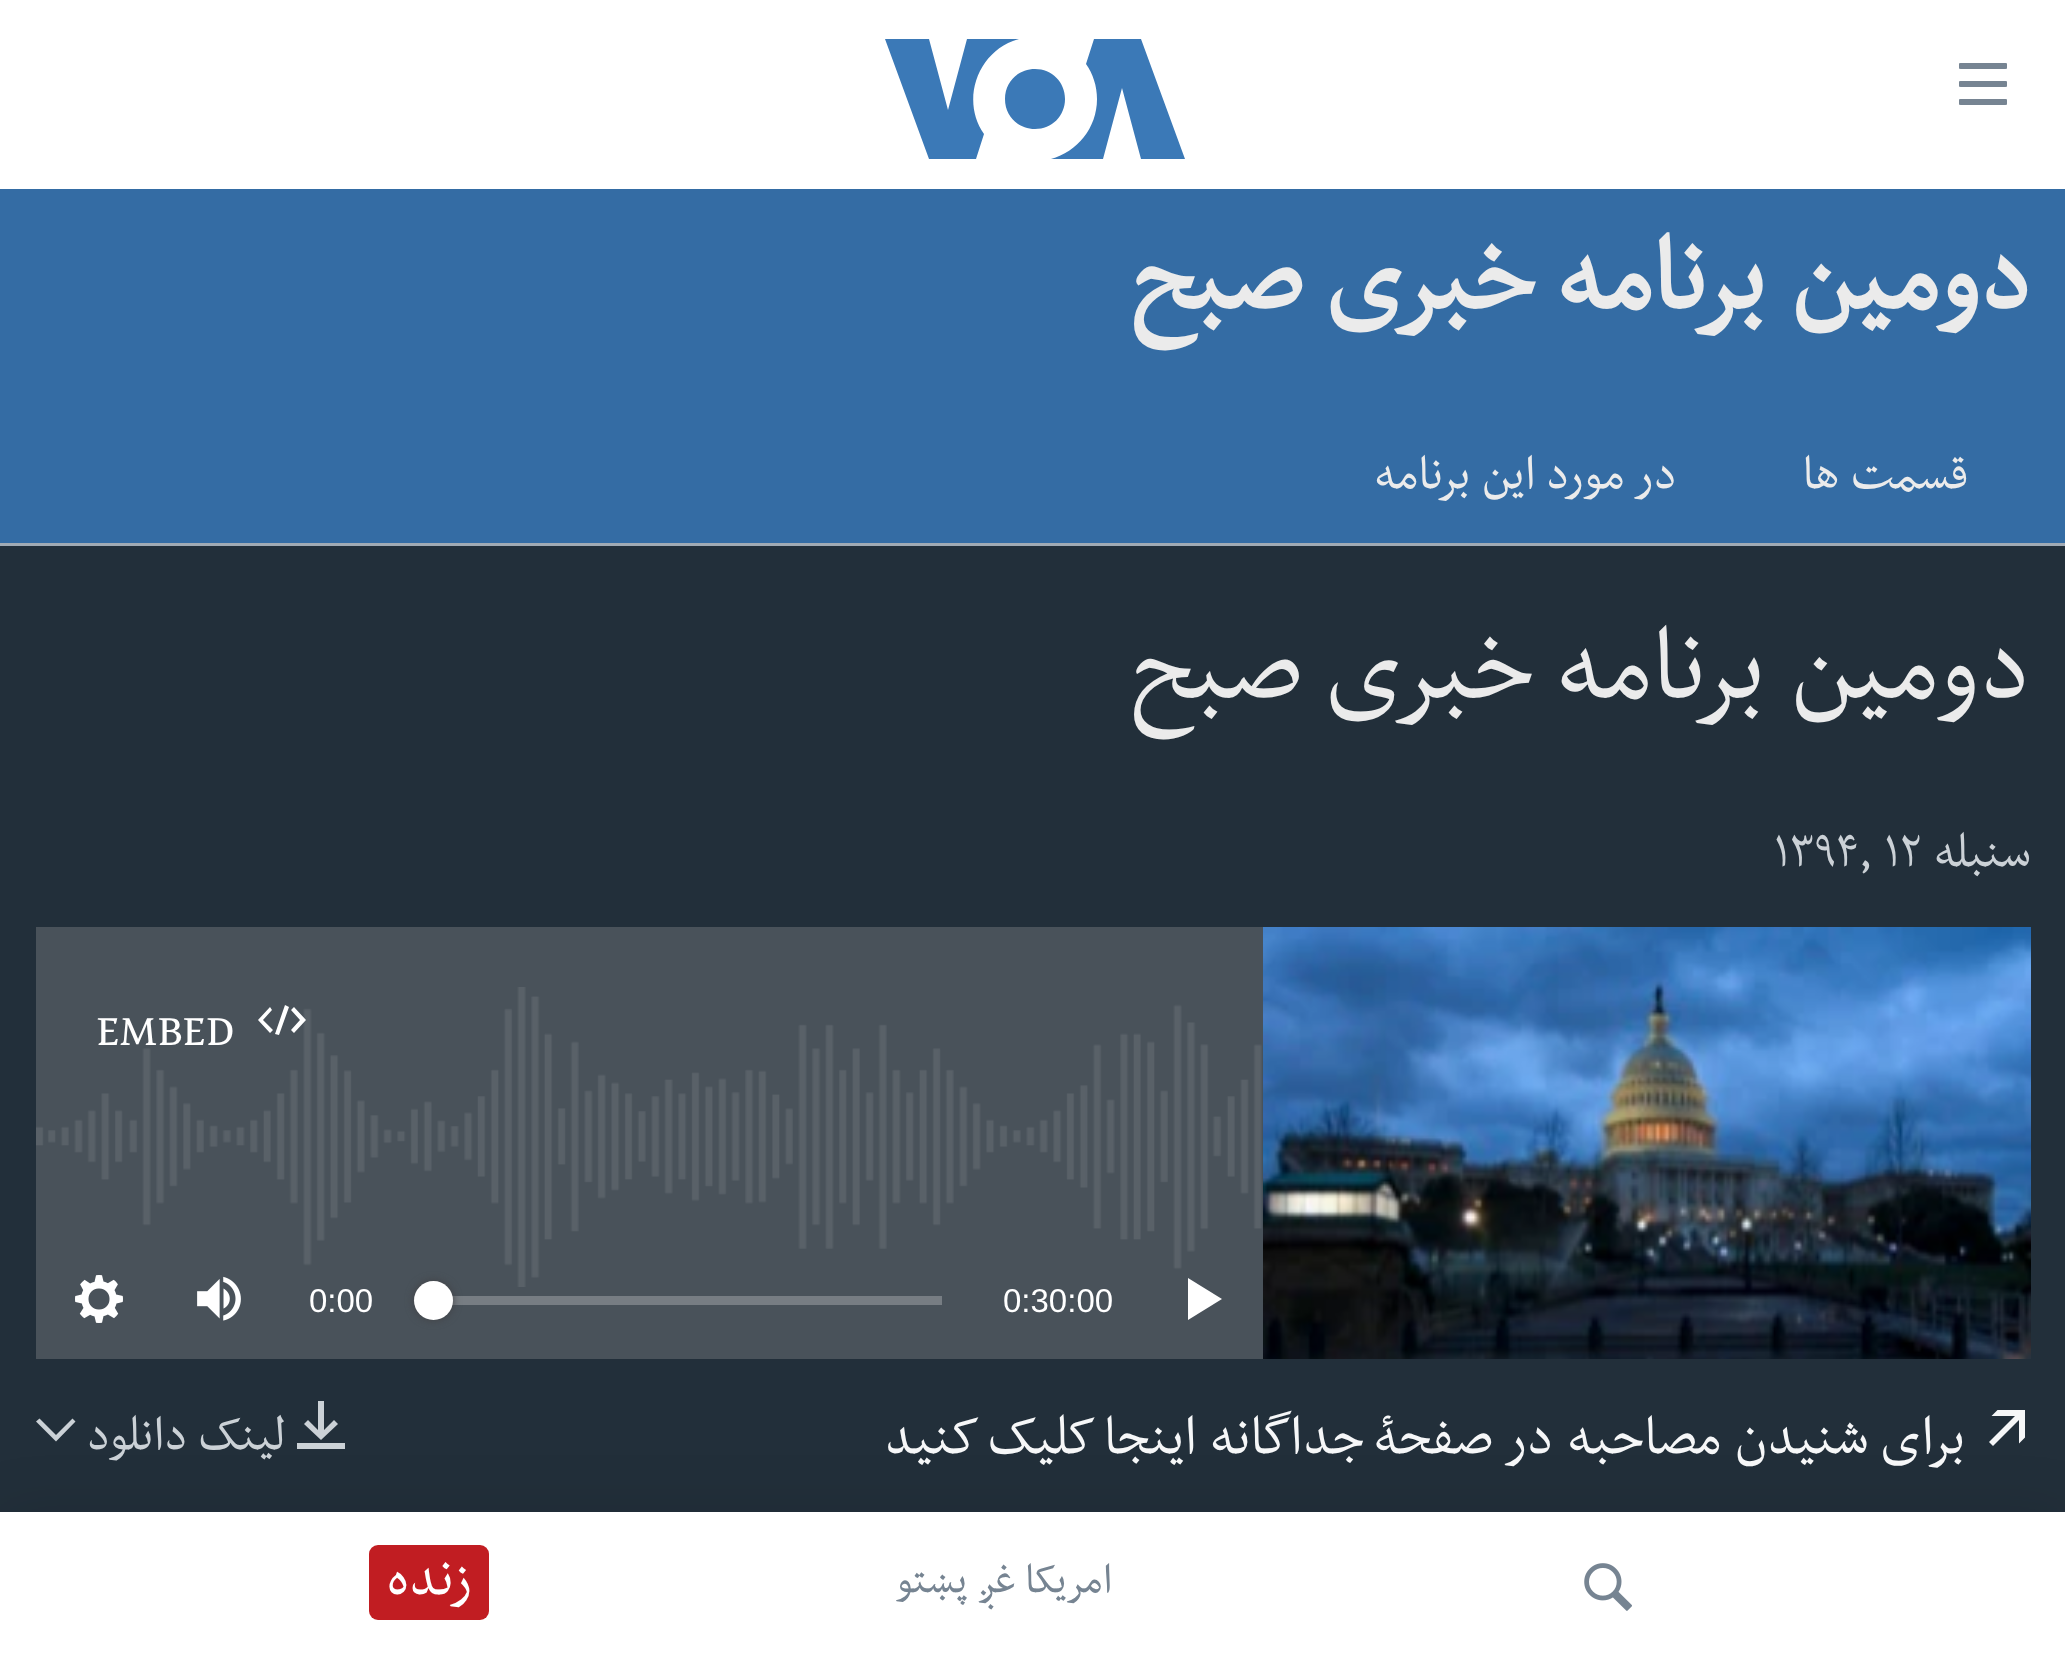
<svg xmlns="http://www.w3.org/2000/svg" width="2065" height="1660">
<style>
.a{font:bold 119.75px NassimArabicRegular;direction:rtl;fill:#ebebeb}
.b{font:55px NassimArabicRegular;direction:rtl;fill:#ebebeb}
.c{font:119.75px NassimArabicRegular;direction:rtl;fill:#ebebeb}
.d{font:55px NassimArabicRegular;direction:rtl;fill:#cbd1d6}
.e{font:55px NassimArabicRegular;fill:#cbd1d6}
.f{font:51px NassimArabicRegular;fill:#fff}
.g{font:33px Liberation Sans;fill:#fff}
.h{font:63px NassimArabicRegular;direction:rtl;fill:#f6f7f8}
.i{font:48px NassimArabicRegular;direction:rtl;fill:#768492}
.j{font:63px NassimArabicRegular;direction:rtl;fill:#fff}
</style>
<rect width="100%" height="100%" fill="#fff"/>
<path fill="#346ca4" d="M0 189h2065v354H0z"/>
<path fill="#222f3a" d="M0 546h2065v966H0z"/>
<path fill="#a1aab4" d="M0 543h2065v3H0z"/>
<path fill="#49525a" d="M36 927h1227v432H36z"/>
<image href="1.png" x="36" y="987" width="1226" height="300"/>
<image href="2.png" x="1263" y="927" width="768" height="432"/>
<path fill="#fff" d="M289 1007l-10 28l-4-1l10-29zm-16 23l-10-10l9-10l-2-3l-12 13l12 13zm18 0l9-10l-9-10l3-3l12 13l-12 13z"/>
<path fill="#fff" d="M1188 1320l34-21l-34-21z"/>
<path fill="#777d83" d="M452 1296h490v9H452z"/>
<rect fill="#414144" filter="blur(4.5px)" x="414" y="1281" width="39" height="39" rx="19.5"/>
<circle fill="#fff" cx="433.5" cy="1300.5" r="19.5"/>
<image href="3.png" x="197" y="1276" width="44" height="45"/>
<image href="4.png" x="75" y="1275" width="48" height="48"/>
<path fill="#f6f7f8" d="M2025 1410h-27.5l-6 6h23.5l-26 26l4 4l26-26v23.5l6-6z"/>
<path fill="#cbd1d6" d="M345 1443v6h-48v-6zm-7-19l-4-4l-10 10v-29h-6v29l-10-10l-4 4l17 16z"/>
<path fill="#cbd1d6" d="M36 1421.5l20 20l19.5-20l-3-3l-16.5 16.5l-16.5-16.5z"/>
<image href="5.png" x="1959" y="63" width="48" height="42"/>
<path fill="#3b79b7" d="M984 134l-8 25h-47l-44-120h44l19 71l19-71h52c-41 11-59 61-35 95zm51-65c-17 0-30 13-30 30c0 17 13 30 30 30c17 0 30-13 30-30c0-17-13-30-30-30zm62 30c0 29-20 53-46 60h52l19-71l19 71h44l-44-120h-47l-8 25c7 10 11 22 11 35z"/>
<path fill="#0000001a" filter="blur(30px)" d="M0 1512h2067v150H0z"/>
<path fill="#fff" d="M0 1512h2065v148H0z"/>
<image href="6.png" x="1584" y="1563" width="48" height="48"/>
<rect fill="#c11d22" x="369" y="1545" width="120" height="75" rx="9"/>
<text class="a" x="2031" y="308">دومین برنامه خبری صبح</text>
<text class="b" x="1968" y="488">قسمت ها</text>
<text class="b" x="1677" y="488">در مورد این برنامه</text>
<text class="c" x="2031" y="697">دومین برنامه خبری صبح</text>
<text class="d" x="2031" y="866">سنبله</text>
<text class="e" x="1774" y="866">۱۳۹۴, ۱۲</text>
<text class="f" x="96" y="1045">EMBED</text>
<text class="g" x="1003" y="1312">0:30:00</text>
<text class="g" x="309" y="1312">0:00</text>
<text class="h" x="1965" y="1453">برای شنیدن مصاحبه در صفحۀ جداگانه اینجا کلیک کنید</text>
<text class="d" x="286" y="1449">لینک دانلود</text>
<text class="i" x="1112" y="1592">امریکا غږ پښتو</text>
<text class="j" x="472" y="1594">زنده</text>
</svg>
